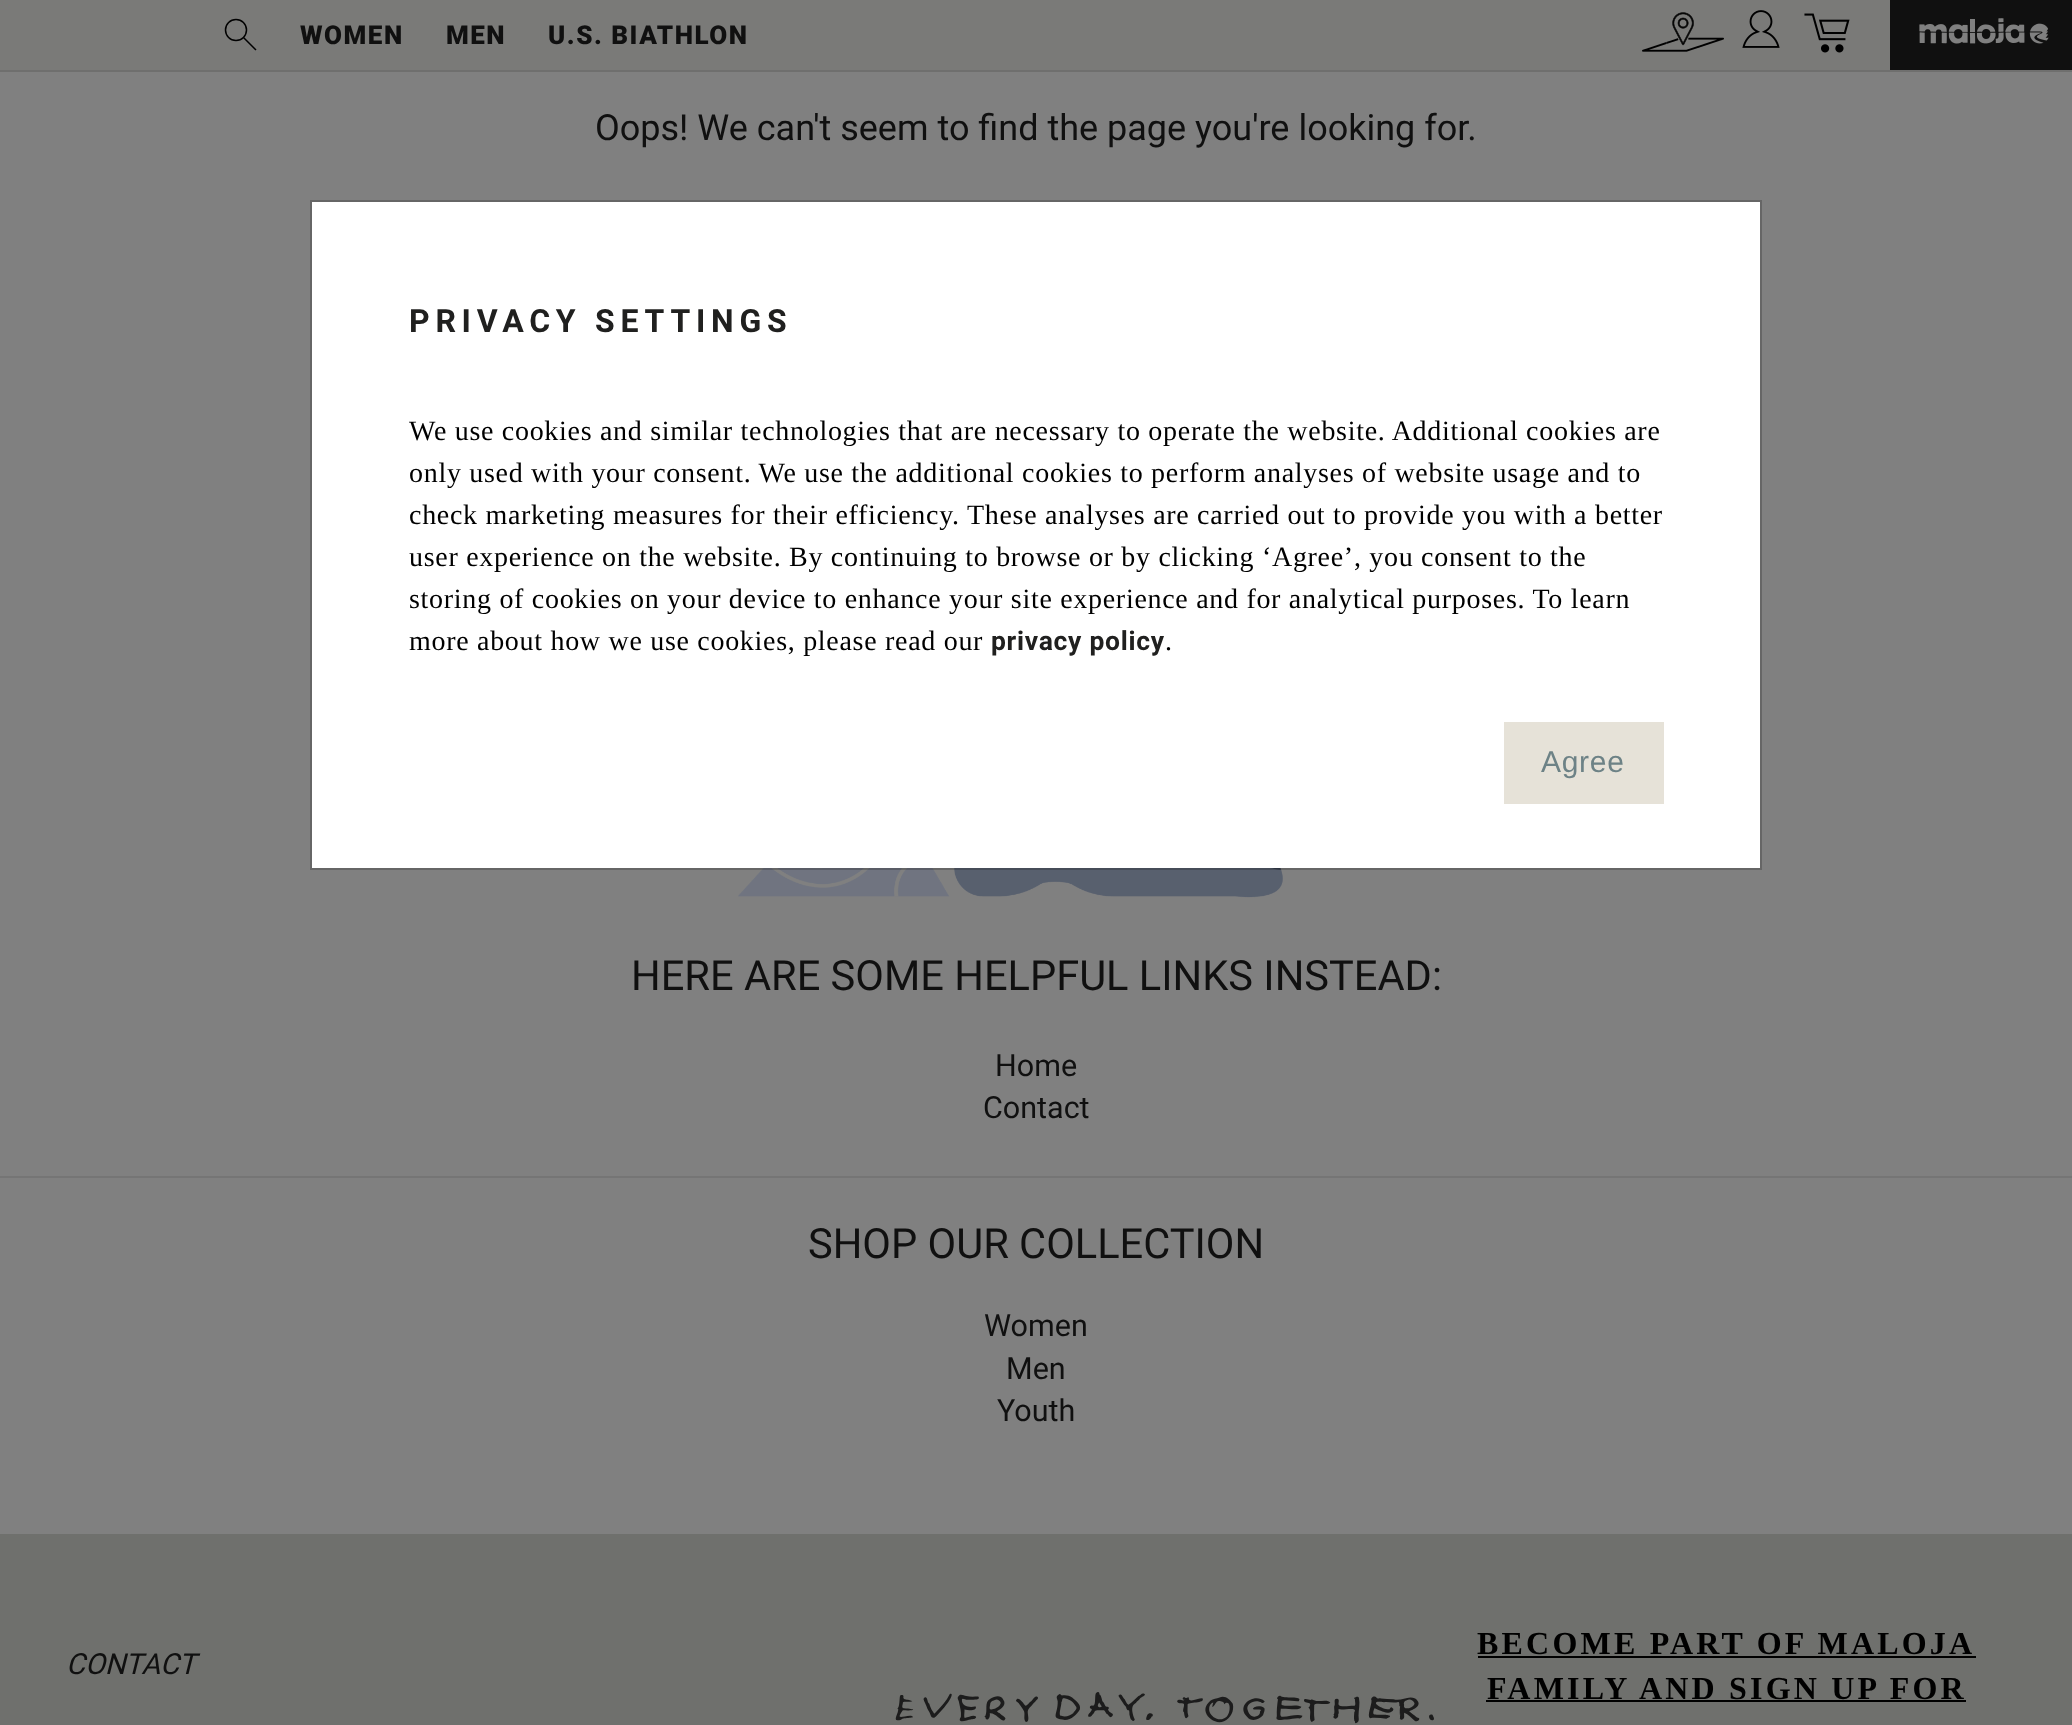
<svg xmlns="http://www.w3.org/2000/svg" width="2072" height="1725">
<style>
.a{font:900 26px Roboto;letter-spacing:1.5px;fill:#101010}
.b{font:36px Roboto;fill:#101010}
.c{font:41.6px Roboto;fill:#101010}
.d{font:30.5px Roboto;fill:#101010}
.e{font:bold 32px Roboto;letter-spacing:5.75px;fill:#20201f}
.f{font:28px Liberation Serif;letter-spacing:0.7px;fill:#000}
.g{font:bold 26.5px Roboto;letter-spacing:0.7px;fill:#20201f}
.h{font:30px Liberation Sans;letter-spacing:0.7px;fill:#6d8286}
.i{font:italic 29px Roboto;fill:#101010}
.j{font:bold 32px Liberation Serif;letter-spacing:3.2px;fill:#000}
</style>
<rect width="100%" height="100%" fill="#808080"/>
<path fill="#7a7a78" d="M0 0h1890v70H0z"/>
<path fill="#6f6f6e" d="M0 70h2072v2H0z"/>
<circle fill="none" stroke="#000" stroke-width="1.5" cx="236" cy="30" r="10.5"/>
<path fill="none" stroke="#000" stroke-width="1.5" d="M243.5 37.5l12.5 12.5"/>
<image href="1.png" x="1642" y="12" width="82" height="40"/>
<image href="2.png" x="1742" y="10" width="38" height="38"/>
<image href="3.png" x="1804" y="13" width="46" height="40"/>
<image href="4.png" x="1890" y="0" width="182" height="70"/>
<image href="5.png" x="738" y="868" width="545" height="30"/>
<path fill="#757575" d="M0 1176h2072v2H0z"/>
<path fill="#fff" d="M312 202h1448v666H312z"/>
<path fill="none" stroke="#00000033" stroke-width="2" d="M311 201h1450v668H311z"/>
<path fill="#e6e2d8" d="M1504 722h160v82H1504z"/>
<path fill="#6f706d" d="M0 1534h2072v191H0z"/>
<path fill="#000" d="M1478 1656h498v2H1478z"/>
<path fill="#000" d="M1486 1700h480v2H1486z"/>
<image href="6.png" x="895" y="1692" width="539" height="32"/>
<text class="a" x="300" y="44">WOMEN</text>
<text class="a" x="446" y="44">MEN</text>
<text class="a" x="548" y="44">U.S. BIATHLON</text>
<text class="b" x="595" y="140">Oops! We can't seem to find the page you're looking for.</text>
<text class="c" x="631" y="990">HERE ARE SOME HELPFUL LINKS INSTEAD:</text>
<text class="d" x="995" y="1076">Home</text>
<text class="d" x="983" y="1118">Contact</text>
<text class="c" x="808" y="1258">SHOP OUR COLLECTION</text>
<text class="d" x="984" y="1336">Women</text>
<text class="d" x="1006" y="1379">Men</text>
<text class="d" x="997" y="1421">Youth</text>
<text class="e" x="409" y="332">PRIVACY SETTINGS</text>
<text class="f" x="409" y="440">We use cookies and similar technologies that are necessary to operate the website. Additional cookies are</text>
<text class="f" x="409" y="482">only used with your consent. We use the additional cookies to perform analyses of website usage and to</text>
<text class="f" x="409" y="524">check marketing measures for their efficiency. These analyses are carried out to provide you with a better</text>
<text class="f" x="409" y="566">user experience on the website. By continuing to browse or by clicking ‘Agree’, you consent to the</text>
<text class="f" x="409" y="608">storing of cookies on your device to enhance your site experience and for analytical purposes. To learn</text>
<text class="f" x="409" y="650">more about how we use cookies, please read our</text>
<text class="g" x="991" y="650">privacy policy</text>
<text class="f" x="1165" y="650">.</text>
<text class="h" x="1541" y="772">Agree</text>
<text class="i" x="66" y="1674">CONTACT</text>
<text class="j" x="1477" y="1654">BECOME PART OF MALOJA</text>
<text class="j" x="1487" y="1699">FAMILY AND SIGN UP FOR</text>
</svg>
